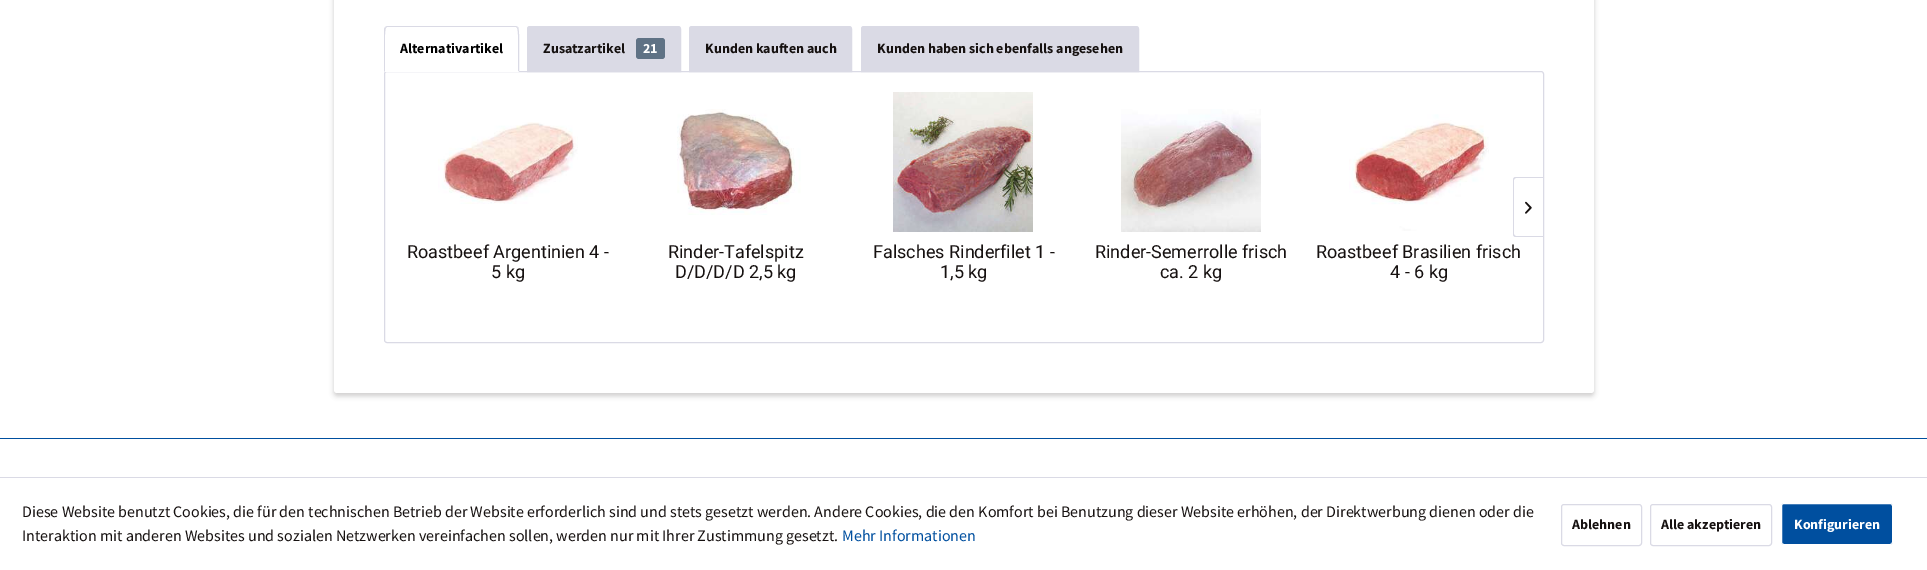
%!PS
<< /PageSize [1927 570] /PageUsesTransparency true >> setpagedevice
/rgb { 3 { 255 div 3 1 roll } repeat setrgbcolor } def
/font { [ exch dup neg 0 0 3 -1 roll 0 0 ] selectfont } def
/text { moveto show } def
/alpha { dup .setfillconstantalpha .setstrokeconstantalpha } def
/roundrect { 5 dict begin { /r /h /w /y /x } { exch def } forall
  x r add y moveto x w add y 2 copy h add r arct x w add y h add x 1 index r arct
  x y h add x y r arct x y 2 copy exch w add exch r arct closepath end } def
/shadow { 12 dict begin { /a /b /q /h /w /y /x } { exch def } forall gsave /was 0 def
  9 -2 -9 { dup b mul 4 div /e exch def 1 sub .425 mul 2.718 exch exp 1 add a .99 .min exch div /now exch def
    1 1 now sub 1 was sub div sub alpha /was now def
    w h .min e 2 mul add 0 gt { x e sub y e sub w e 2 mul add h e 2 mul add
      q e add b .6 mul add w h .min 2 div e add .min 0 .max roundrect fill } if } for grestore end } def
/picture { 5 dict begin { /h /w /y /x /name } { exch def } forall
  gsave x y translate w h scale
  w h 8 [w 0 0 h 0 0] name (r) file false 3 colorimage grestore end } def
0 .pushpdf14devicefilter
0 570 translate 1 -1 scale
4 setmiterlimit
255 255 255 rgb
0 0 1927 570 rectfill
22 17 16 rgb
334 -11 1260 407 3 2.5 0.2 shadow
255 255 255 rgb
334 -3 moveto 1260 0 rlineto 0 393 rlineto 0 1.5 -1.5 3 -3 3 rcurveto -1254 0 rlineto -1.5 0 -3 -1.5 -3 -3 rcurveto closepath fill
218 218 229 rgb
384.5 71.5 1159 271 2.5 roundrect stroke
255 255 255 rgb
387 26 moveto 129 0 rlineto 1.5 0 3 1.5 3 3 rcurveto 0 43 rlineto -135 0 rlineto 0 -43 rlineto 0 -1.5 1.5 -3 3 -3 rcurveto closepath fill
218 218 229 rgb
387 26 moveto -2 1 rlineto 1 1 rlineto 1 -1 rlineto 129 0 rlineto 1 1 rlineto 1 -1 rlineto -2 -1 rlineto closepath fill
519 72 moveto 0 -5 1 -43 -1 -45 rcurveto -1 1 rlineto 2 1 1 38 1 43 rcurveto closepath fill
255 255 255 rgb
519 72 moveto -1 -1 rlineto -133 0 rlineto -1 1 rlineto closepath fill
218 218 229 rgb
384 72 moveto 1 -1 rlineto 0 -5 -1 -42 1 -43 rcurveto -1 -1 rlineto -1 2 rlineto closepath fill
530 26.5 moveto 148 0 rlineto 1.5 0 2.5 1 2.5 2.5 rcurveto 0 42.5 rlineto -153 0 rlineto 0 -42.5 rlineto 0 -1.5 1 -2.5 2.5 -2.5 rcurveto closepath gsave fill grestore
stroke
95 114 133 rgb
636 38 29 21 3 roundrect fill
218 218 229 rgb
692 26.5 moveto 157 0 rlineto 1.5 0 2.5 1 2.5 2.5 rcurveto 0 42.5 rlineto -162 0 rlineto 0 -42.5 rlineto 0 -1.5 1 -2.5 2.5 -2.5 rcurveto closepath gsave fill grestore
stroke
864 26.5 moveto 272 0 rlineto 1.5 0 2.5 1 2.5 2.5 rcurveto 0 42.5 rlineto -277 0 rlineto 0 -42.5 rlineto 0 -1.5 1 -2.5 2.5 -2.5 rcurveto closepath gsave fill grestore
stroke
1516 177 moveto 27 0 rlineto 0 60 rlineto -27 0 rlineto -2 0 -3 -1 -3 -3 rcurveto 0 -54 rlineto 0 -2 1 -3 3 -3 rcurveto closepath 1516 178 moveto 27 0 rlineto 0 58 rlineto -27 0 rlineto -1 0 -2 -1 -2 -2 rcurveto 0 -54 rlineto 0 -1 1 -2 2 -2 rcurveto closepath eofill
(img_01.rgb) 1525 201 7 13 picture
(img_02.rgb) 438 122 140 82 picture
(img_03.rgb) 677 109 124 106 picture
(img_04.rgb) 893 92 140 140 picture
(img_05.rgb) 1121 109 140 123 picture
(img_06.rgb) 1349 114 140 117 picture
0 79 159 rgb
0 438 1927 1 rectfill
218 218 229 rgb
0 477 1927 1 rectfill
1561.5 504.5 80 41 2.5 roundrect stroke
1650.5 504.5 121 41 2.5 roundrect stroke
0 79 159 rgb
1781.5 503.5 111 41 2.5 roundrect gsave fill grestore
255 255 255 rgb
stroke
/SourceSansPro-Bold 14 font
0 0 0 rgb
(Alternativartikel) 400 53 text
22 17 16 rgb
(Zusatzartikel) 543 53 text
255 255 255 rgb
(21) 643 53 text
22 17 16 rgb
(Kunden kauften auch) 705 53 text
(Kunden haben sich ebenfalls angesehen) 877 53 text
/Roboto-Regular 18 font
(Roastbeef Argentinien 4 -) 407 258 text
(5 kg) 491 278 text
(Rinder-Tafelspitz) 668 258 text
(D/D/D/D 2,5 kg) 675 278 text
(Falsches Rinderfilet 1 -) 873 258 text
(1,5 kg) 940 278 text
(Rinder-Semerrolle frisch) 1095 258 text
(ca. 2 kg) 1160 278 text
(Roastbeef Brasilien frisch) 1316 258 text
(4 - 6 kg) 1390 278 text
/SourceSansPro-Regular 16 font
(Diese Website benutzt Cookies, die für den technischen Betrieb der Website erforderlich sind und stets gesetzt werden. Andere Cookies, die den Komfort bei Benutzung dieser Website erhöhen, der Direktwerbung dienen oder die) 22 517 text
(Interaktion mit anderen Websites und sozialen Netzwerken vereinfachen sollen, werden nur mit Ihrer Zustimmung gesetzt.) 22 541 text
0 79 159 rgb
(Mehr Informationen) 842 541 text
/SourceSansPro-Bold 14 font
22 17 16 rgb
(Ablehnen) 1572 529 text
(Alle akzeptieren) 1661 529 text
255 255 255 rgb
(Konfigurieren) 1794 529 text
.poppdf14devicefilter showpage
